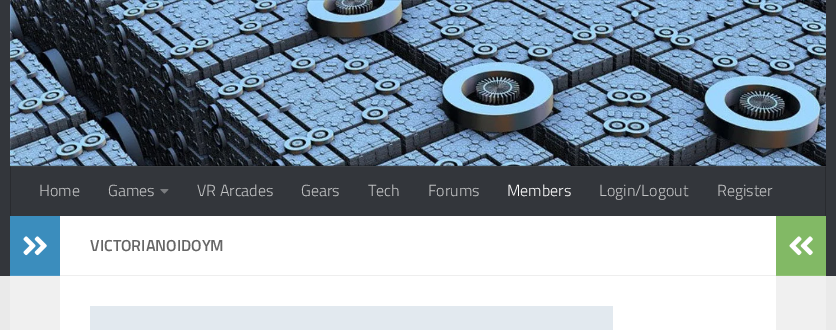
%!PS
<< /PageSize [836 330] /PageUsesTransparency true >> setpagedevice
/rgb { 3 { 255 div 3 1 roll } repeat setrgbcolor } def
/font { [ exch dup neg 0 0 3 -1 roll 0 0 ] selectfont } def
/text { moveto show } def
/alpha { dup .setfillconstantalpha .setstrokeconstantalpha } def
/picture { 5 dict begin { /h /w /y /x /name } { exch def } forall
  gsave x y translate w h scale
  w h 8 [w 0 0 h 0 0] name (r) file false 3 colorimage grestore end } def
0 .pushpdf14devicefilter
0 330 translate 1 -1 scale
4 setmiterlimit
234 234 234 rgb
0 0 836 330 rectfill
51 54 59 rgb
0 0 836 276 rectfill
61 64 69 rgb
10 166 816 1 rectfill
(img_01.rgb) 10 0 816 166 picture
0.2 alpha
0 0 0 rgb
10 165 816 1 rectfill
1 alpha
41 43 47 rgb
825 166 1 50 rectfill
52 54 57 rgb
825 166 1 1 rectfill
41 43 47 rgb
10 166 1 50 rectfill
52 54 57 rgb
10 166 1 1 rectfill
(img_02.rgb) 160 189 9 5 picture
255 255 255 rgb
60 216 716 114 rectfill
59 141 189 rgb
10 216 50 59 rectfill
79 152 196 rgb
10 275 50 1 rectfill
(img_03.rgb) 23 236 24 20 picture
238 238 238 rgb
60 275 716 1 rectfill
226 233 239 rgb
90 306 523 24 rectfill
130 185 101 rgb
776 216 50 59 rectfill
143 192 116 rgb
776 275 50 1 rectfill
(img_04.rgb) 789 236 24 20 picture
240 240 240 rgb
10 276 50 54 rectfill
776 276 50 54 rectfill
/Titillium-Light 16 font
194 195 196 rgb
(Home) 39 196 text
(Games) 108 196 text
(VR Arcades) 197 196 text
(Gears) 301 196 text
(Tech) 368 196 text
(Forums) 428 196 text
255 255 255 rgb
(Members) 507 196 text
194 195 196 rgb
(Login/Logout) 599 196 text
(Register) 717 196 text
/Titillium-SemiBold 16 font
102 102 102 rgb
(VICTORIANOIDOYM) 90 251 text
.poppdf14devicefilter showpage
